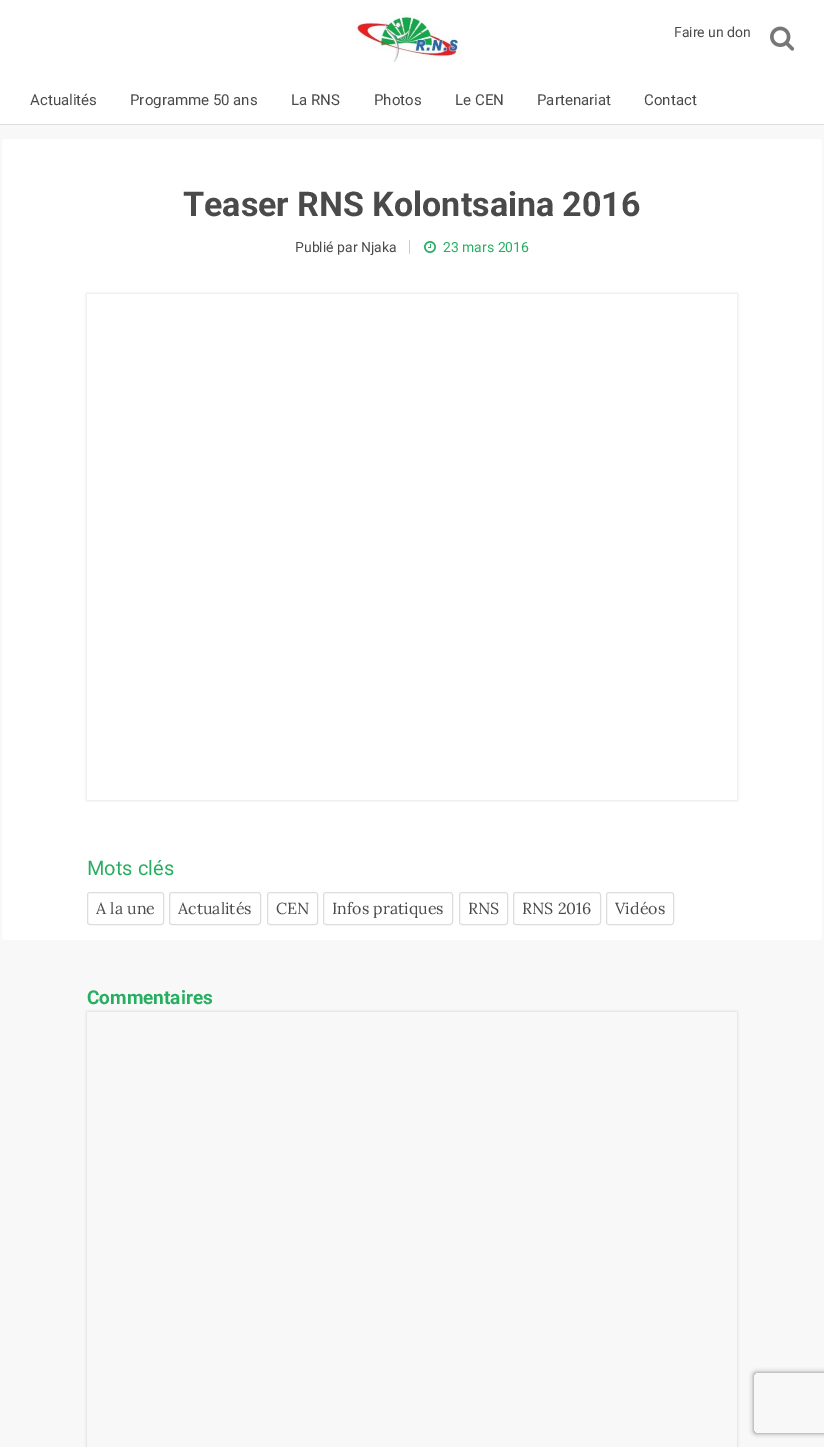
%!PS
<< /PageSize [824 1447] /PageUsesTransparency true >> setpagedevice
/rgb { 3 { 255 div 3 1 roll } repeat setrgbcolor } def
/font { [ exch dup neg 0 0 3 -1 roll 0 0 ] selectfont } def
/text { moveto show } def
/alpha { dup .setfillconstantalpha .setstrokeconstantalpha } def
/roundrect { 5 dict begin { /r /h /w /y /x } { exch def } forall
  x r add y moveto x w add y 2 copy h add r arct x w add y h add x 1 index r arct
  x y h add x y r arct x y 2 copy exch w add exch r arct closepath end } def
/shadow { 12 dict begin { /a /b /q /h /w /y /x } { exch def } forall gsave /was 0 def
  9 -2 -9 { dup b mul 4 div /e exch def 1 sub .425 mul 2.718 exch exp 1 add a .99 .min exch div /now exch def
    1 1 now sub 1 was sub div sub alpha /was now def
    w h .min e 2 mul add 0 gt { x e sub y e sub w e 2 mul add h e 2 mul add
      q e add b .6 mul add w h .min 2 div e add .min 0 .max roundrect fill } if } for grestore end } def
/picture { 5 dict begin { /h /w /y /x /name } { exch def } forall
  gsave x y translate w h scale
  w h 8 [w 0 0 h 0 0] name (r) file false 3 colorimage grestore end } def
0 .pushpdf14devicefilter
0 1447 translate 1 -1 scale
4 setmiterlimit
248 248 248 rgb
0 0 824 1447 rectfill
223 223 223 rgb
0 124 824 1 rectfill
255 255 255 rgb
0 0 824 124 rectfill
(img_01.rgb) 352 13 112 49 picture
(img_02.rgb) 770 26 25 25 picture
2 139 820 801 3 roundrect fill
204 204 204 rgb
409 240 1 14 rectfill
(img_03.rgb) 424 241 12 12 picture
gsave
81 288 moveto 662 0 rlineto 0 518 rlineto -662 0 rlineto closepath 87 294 moveto 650 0 rlineto 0 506 rlineto -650 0 rlineto closepath eoclip newpath
0 0 0 rgb
87 294 650 506 0 1.5 0.15 shadow
grestore
221 221 221 rgb
87.5 892.5 76 32 2.5 roundrect stroke
169.5 892.5 91 32 2.5 roundrect stroke
267.5 892.5 50 32 2.5 roundrect stroke
323.5 892.5 129 32 2.5 roundrect stroke
459.5 892.5 48 32 2.5 roundrect stroke
513.5 892.5 87 32 2.5 roundrect stroke
606.5 892.5 67 32 2.5 roundrect stroke
gsave
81 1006 moveto 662 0 rlineto 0 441 rlineto -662 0 rlineto closepath 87 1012 moveto 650 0 rlineto 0 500 rlineto -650 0 rlineto closepath eoclip newpath
0 0 0 rgb
87 1012 650 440 0 1.5 0.15 shadow
grestore
gsave
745 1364 moveto 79 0 rlineto 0 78 rlineto -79 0 rlineto closepath 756 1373 moveto 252 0 rlineto 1 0 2 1 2 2 rcurveto 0 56 rlineto 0 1 -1 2 -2 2 rcurveto -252 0 rlineto -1 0 -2 -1 -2 -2 rcurveto 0 -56 rlineto 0 -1 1 -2 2 -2 rcurveto closepath eoclip newpath
128 128 128 rgb
754 1373 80 60 2 2.5 1 shadow
grestore
/Roboto-Regular 14 font
74 74 74 rgb
(Faire un don) 674 37 text
/Roboto-Regular 15 font
(Actualités) 30 105 text
(Programme 50 ans) 130 105 text
(La RNS) 291 105 text
(Photos) 374 105 text
(Le CEN) 455 105 text
(Partenariat) 537 105 text
(Contact) 644 105 text
/Roboto-Bold 34 font
(Teaser RNS Kolontsaina 2016) 183 216 text
/Roboto-Regular 14 font
(Publié par Njaka) 295 252 text
39 174 96 rgb
(23 mars 2016) 443 252 text
/Roboto-Regular 20 font
(Mots clés) 87 875 text
/Lora-Regular 16 font
74 74 74 rgb
(A la une) 96 914 text
(Actualités) 178 914 text
(CEN) 276 914 text
(Infos pratiques) 332 914 text
(RNS) 468 914 text
(RNS 2016) 522 914 text
(Vidéos) 615 914 text
/Roboto-Bold 19 font
39 174 96 rgb
(Commentaires) 87 1004 text
.poppdf14devicefilter showpage
